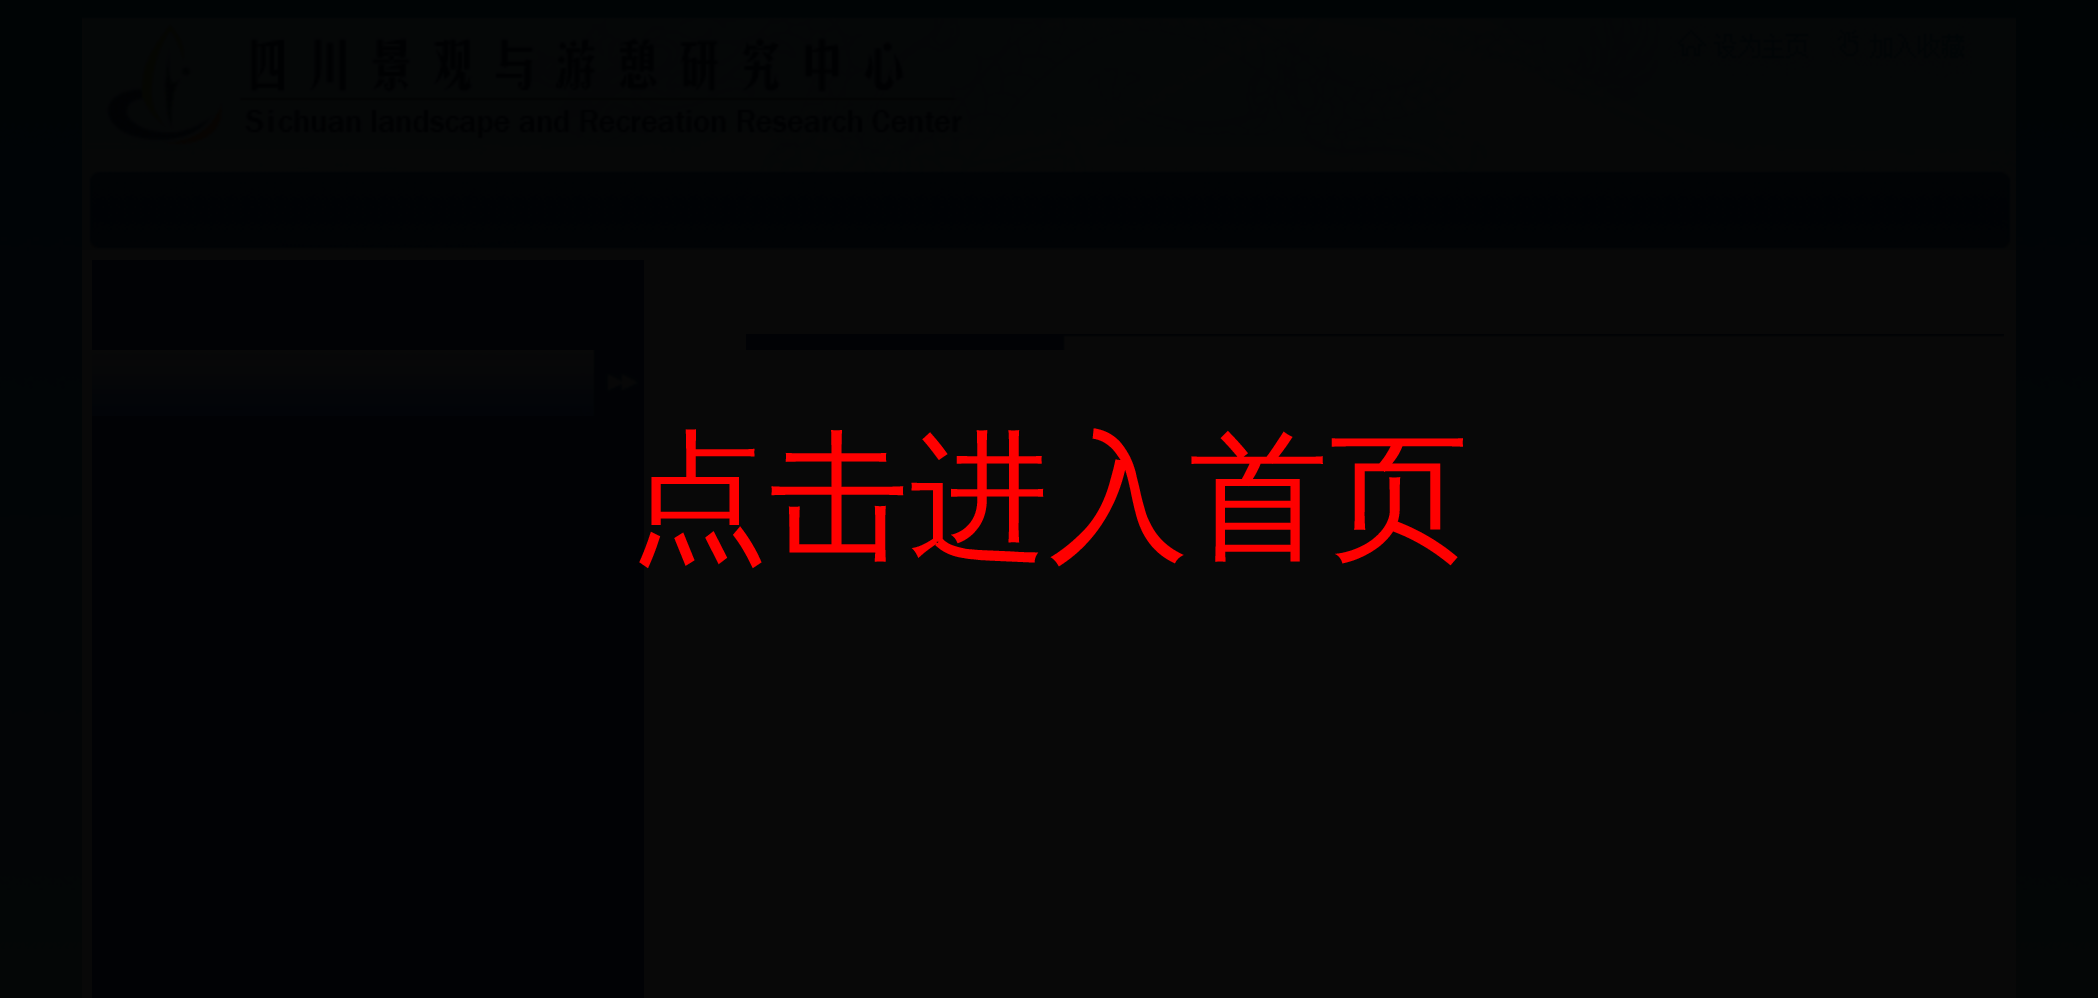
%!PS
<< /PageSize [2098 998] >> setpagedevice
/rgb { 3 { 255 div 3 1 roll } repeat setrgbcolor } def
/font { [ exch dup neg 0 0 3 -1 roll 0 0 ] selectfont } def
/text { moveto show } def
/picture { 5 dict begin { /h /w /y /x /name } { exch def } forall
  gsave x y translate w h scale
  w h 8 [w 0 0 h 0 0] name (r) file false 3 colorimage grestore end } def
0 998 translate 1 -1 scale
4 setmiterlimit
255 255 255 rgb
0 0 2098 998 rectfill
(img_01.rgb) 0 0 2098 998 picture
8 8 8 rgb
82 250 1934 748 rectfill
(img_02.rgb) 82 0 1934 250 picture
1 2 5 rgb
92 260 552 738 rectfill
(img_03.rgb) 92 350 547 66 picture
(img_04.rgb) 746 334 1258 16 picture
/WenQuanYiZenHei-Medium 140 font
255 0 0 rgb
(点击进入首页) 629 545 text
showpage
